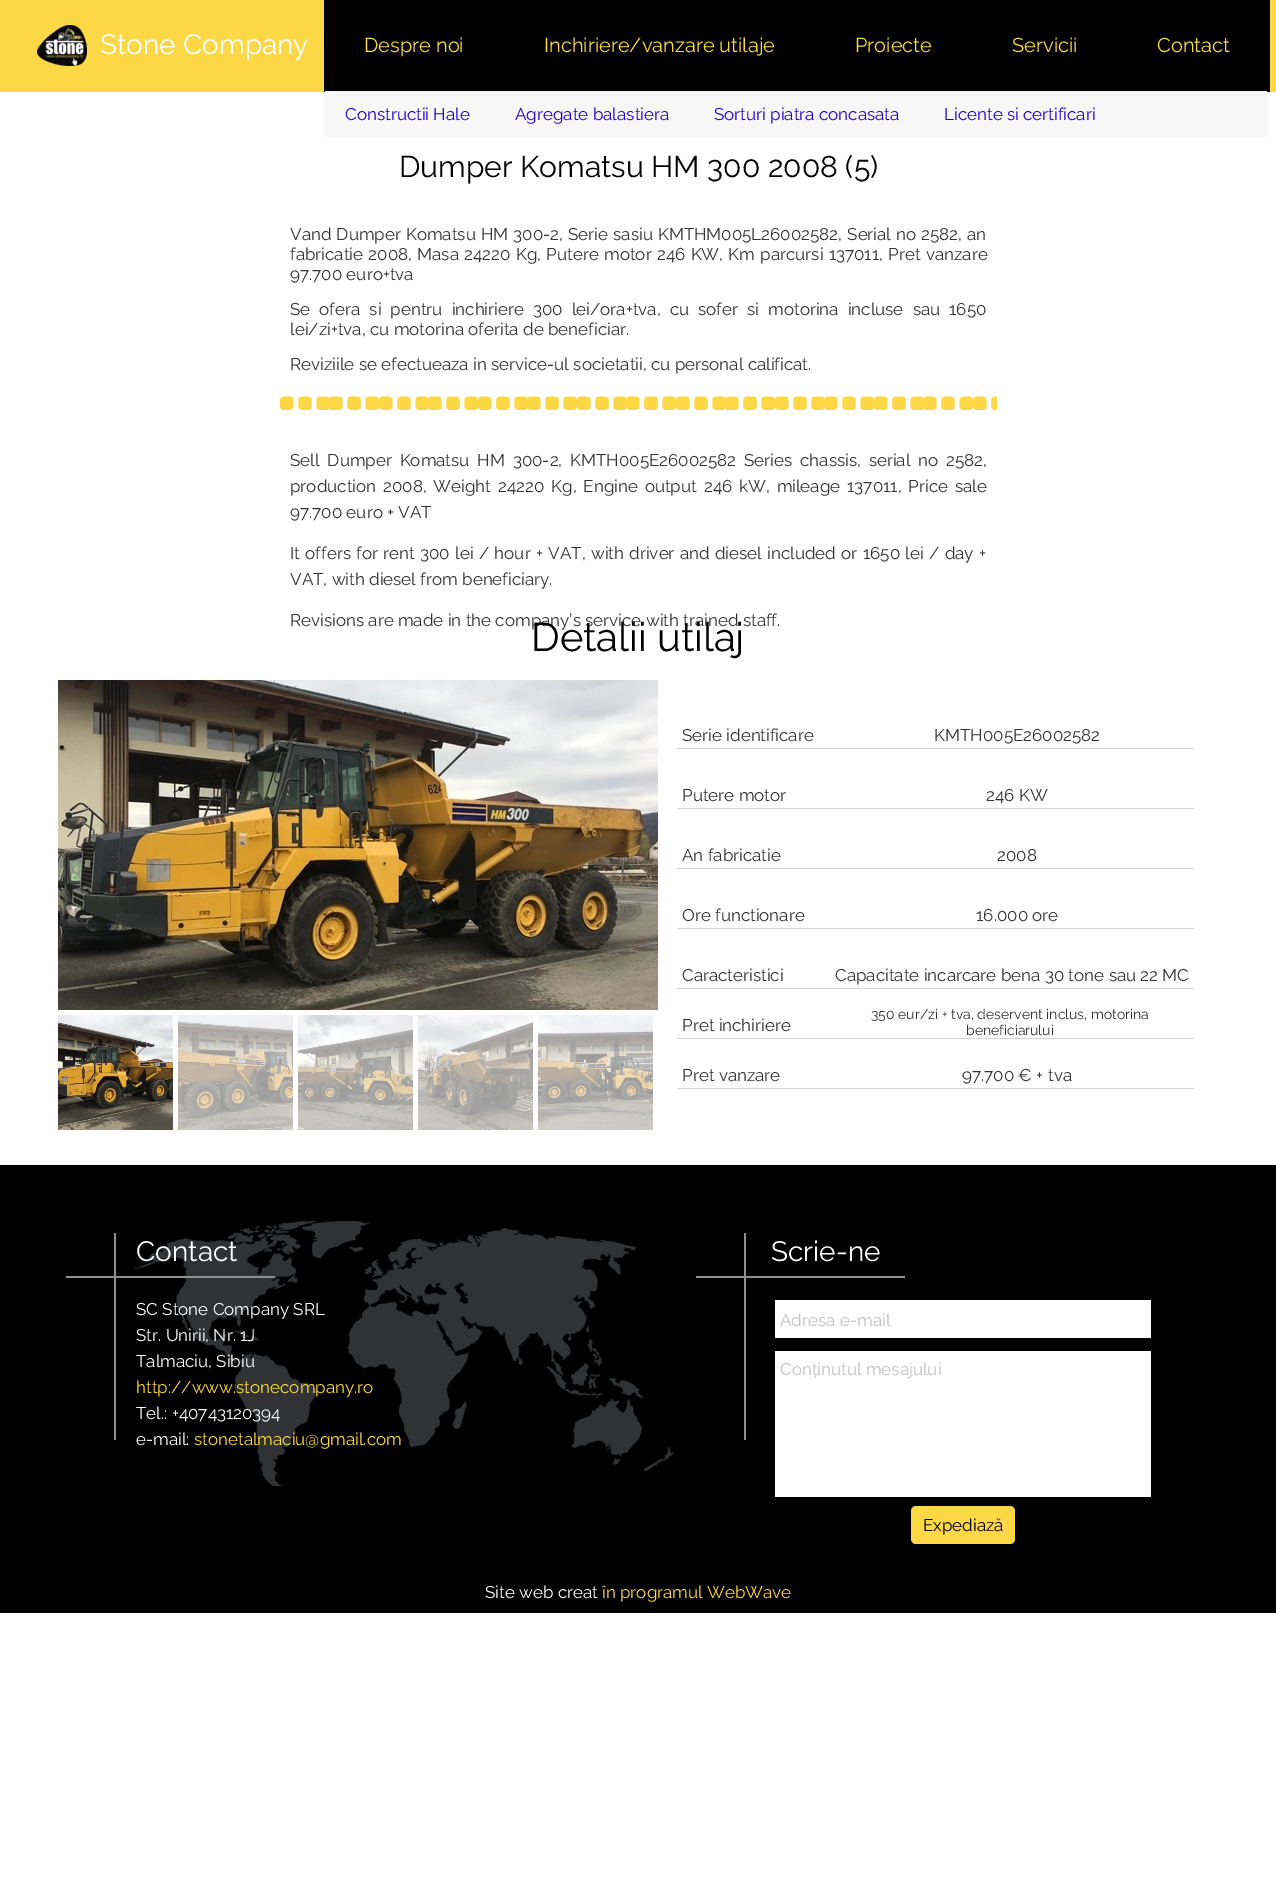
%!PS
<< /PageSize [1276 1885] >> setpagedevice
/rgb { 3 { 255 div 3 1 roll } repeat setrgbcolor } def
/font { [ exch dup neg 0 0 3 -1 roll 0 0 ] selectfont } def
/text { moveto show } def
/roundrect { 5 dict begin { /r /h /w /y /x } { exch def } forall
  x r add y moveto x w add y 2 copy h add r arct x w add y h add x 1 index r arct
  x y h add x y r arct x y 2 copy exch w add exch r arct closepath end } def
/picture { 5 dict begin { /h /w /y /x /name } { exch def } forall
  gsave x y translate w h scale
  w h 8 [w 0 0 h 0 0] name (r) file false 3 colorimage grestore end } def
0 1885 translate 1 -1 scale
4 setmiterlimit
255 255 255 rgb
0 0 1276 1885 rectfill
252 216 70 rgb
0 0 1276 92 rectfill
(img_01.rgb) 37 25 50 41 picture
0 0 0 rgb
324 0 946 92 rectfill
247 247 247 rgb
325 91 942 46 rectfill
(img_02.rgb) 280 396 717 14 picture
(img_03.rgb) 58 680 600 330 picture
(img_04.rgb) 58 1015 115 115 picture
(img_05.rgb) 178 1015 115 115 picture
(img_06.rgb) 298 1015 115 115 picture
(img_07.rgb) 418 1015 115 115 picture
(img_08.rgb) 538 1015 115 115 picture
212 212 212 rgb
677 748 517 1 rectfill
677 808 517 1 rectfill
677 868 517 1 rectfill
677 928 517 1 rectfill
677 988 517 1 rectfill
677 1038 517 1 rectfill
677 1088 517 1 rectfill
0 0 0 rgb
0 1165 1276 448 rectfill
(img_09.rgb) 134 1221 540 265 picture
143 143 143 rgb
66 1276 209 2 rectfill
114 1233 2 207 rectfill
696 1276 209 2 rectfill
744 1233 2 207 rectfill
255 255 255 rgb
775 1300 376 38 rectfill
775 1351 376 146 rectfill
252 216 70 rgb
911 1506 104 38 5 roundrect fill
/Raleway-Thin 28 font
255 255 255 rgb
(Stone Company) 100 54 text
/Raleway-Thin 20 font
252 216 70 rgb
(Despre noi) 364 52 text
(Inchiriere/vanzare utilaje) 544 52 text
(Proiecte) 855 52 text
(Servicii) 1012 52 text
(Contact) 1157 52 text
/Raleway-Thin 17 font
34 0 204 rgb
(Constructii Hale) 345 120 text
(Agregate balastiera) 515 120 text
(Sorturi piatra concasata) 714 120 text
(Licente si certificari) 944 120 text
/Raleway-Thin 30 font
0 0 0 rgb
(Dumper Komatsu HM 300 2008 \(5\)) 399 177 text
/Raleway-Thin 17 font
51 51 51 rgb
290 240 moveto 0.75 0 32 (Vand Dumper Komatsu HM 300-2, Serie sasiu KMTHM005L26002582, Serial no 2582, an) widthshow
290 260 moveto 1 0 32 (fabricatie 2008, Masa 24220 Kg, Putere motor 246 KW, Km parcursi 137011, Pret vanzare) widthshow
(97.700 euro+tva) 290 280 text
290 315 moveto 4.75 0 32 (Se ofera si pentru inchiriere 300 lei/ora+tva, cu sofer si motorina incluse sau 1650) widthshow
(lei/zi+tva, cu motorina oferita de beneficiar.) 290 335 text
(Reviziile se efectueaza in service-ul societatii, cu personal calificat.) 290 370 text
290 466 moveto 3.5 0 32 (Sell Dumper Komatsu HM 300-2, KMTH005E26002582 Series chassis, serial no 2582,) widthshow
290 492 moveto 2.6 0 32 (production 2008, Weight 24220 Kg, Engine output 246 kW, mileage 137011, Price sale) widthshow
(97.700 euro + VAT) 290 518 text
290 559 moveto 1 0 32 (It offers for rent 300 lei / hour + VAT, with driver and diesel included or 1650 lei / day +) widthshow
(VAT, with diesel from beneficiary.) 290 585 text
(Revisions are made in the company’s service with trained staff.) 290 626 text
/Raleway-Thin 40 font
0 0 0 rgb
(Detalii utilaj) 531 651 text
/Raleway-Thin 17 font
51 51 51 rgb
(Serie identificare) 682 741 text
(KMTH005E26002582) 934 741 text
(Putere motor) 682 801 text
(246 KW) 986 801 text
(An fabricatie) 682 861 text
(2008) 997 861 text
(Ore functionare) 682 921 text
(16.000 ore) 976 921 text
(Caracteristici) 682 981 text
(Capacitate incarcare bena 30 tone sau 22 MC) 835 981 text
(Pret inchiriere) 682 1031 text
/Raleway-Thin 14 font
(350 eur/zi + tva, deservent inclus, motorina) 871 1019 text
(beneficiarului) 966 1035 text
/Raleway-Thin 17 font
(Pret vanzare) 682 1081 text
(97.700 € + tva) 962 1081 text
/Raleway-Thin 28 font
255 255 255 rgb
(Scrie-ne) 771 1261 text
(Contact) 136 1261 text
/Raleway-Thin 17 font
(SC Stone Company SRL) 136 1315 text
(Str. Unirii, Nr. 1J) 136 1341 text
(Talmaciu, Sibiu) 136 1367 text
252 216 70 rgb
(http://www.stonecompany.ro) 136 1393 text
255 255 255 rgb
(Tel.: +40743120394) 136 1419 text
(e-mail:) 136 1445 text
252 216 70 rgb
(stonetalmaciu@gmail.com) 194 1445 text
194 194 194 rgb
(Adresa e-mail) 780 1326 text
(Conținutul mesajului) 780 1375 text
0 0 0 rgb
(Expediază) 923 1531 text
255 255 255 rgb
(Site web creat) 485 1598 text
252 216 70 rgb
(în programul WebWave) 602 1598 text
showpage
